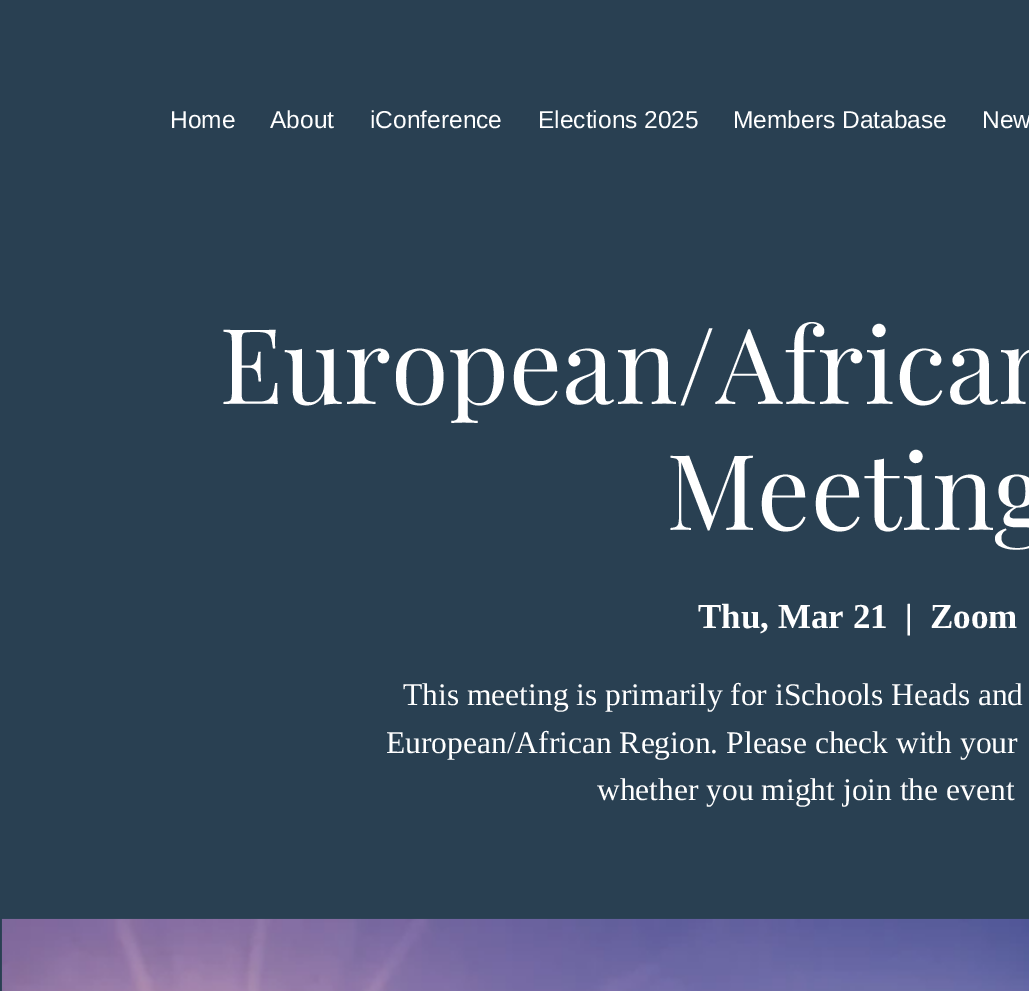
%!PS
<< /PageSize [1029 991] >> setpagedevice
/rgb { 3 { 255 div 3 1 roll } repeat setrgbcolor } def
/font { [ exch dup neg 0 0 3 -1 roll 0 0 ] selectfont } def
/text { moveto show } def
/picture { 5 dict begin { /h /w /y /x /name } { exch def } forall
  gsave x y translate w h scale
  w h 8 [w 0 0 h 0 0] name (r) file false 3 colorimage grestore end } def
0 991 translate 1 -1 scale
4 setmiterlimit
41 64 82 rgb
0 0 1029 991 rectfill
(img_01.rgb) 1 918 1028 73 picture
/LiberationSans-Regular 24.5 font
255 255 255 rgb
(Home) 170 128 text
(About) 270 128 text
(iConference) 370 128 text
(Elections 2025) 538 128 text
(Members Database) 733 128 text
(New) 982 128 text
/PlayfairDisplay-Regular 105 font
(European/African) 219 404 text
(Meeting) 666 530 text
/LiberationSerif-Bold 35 font
(Thu, Mar 21) 698 628 text
(|) 905 628 text
(Zoom) 930 628 text
/LiberationSerif-Regular 31.5 font
(This meeting is primarily for iSchools Heads and) 403 705 text
(European/African Region. Please check with your) 386 753 text
(whether you might join the event) 597 800 text
showpage
